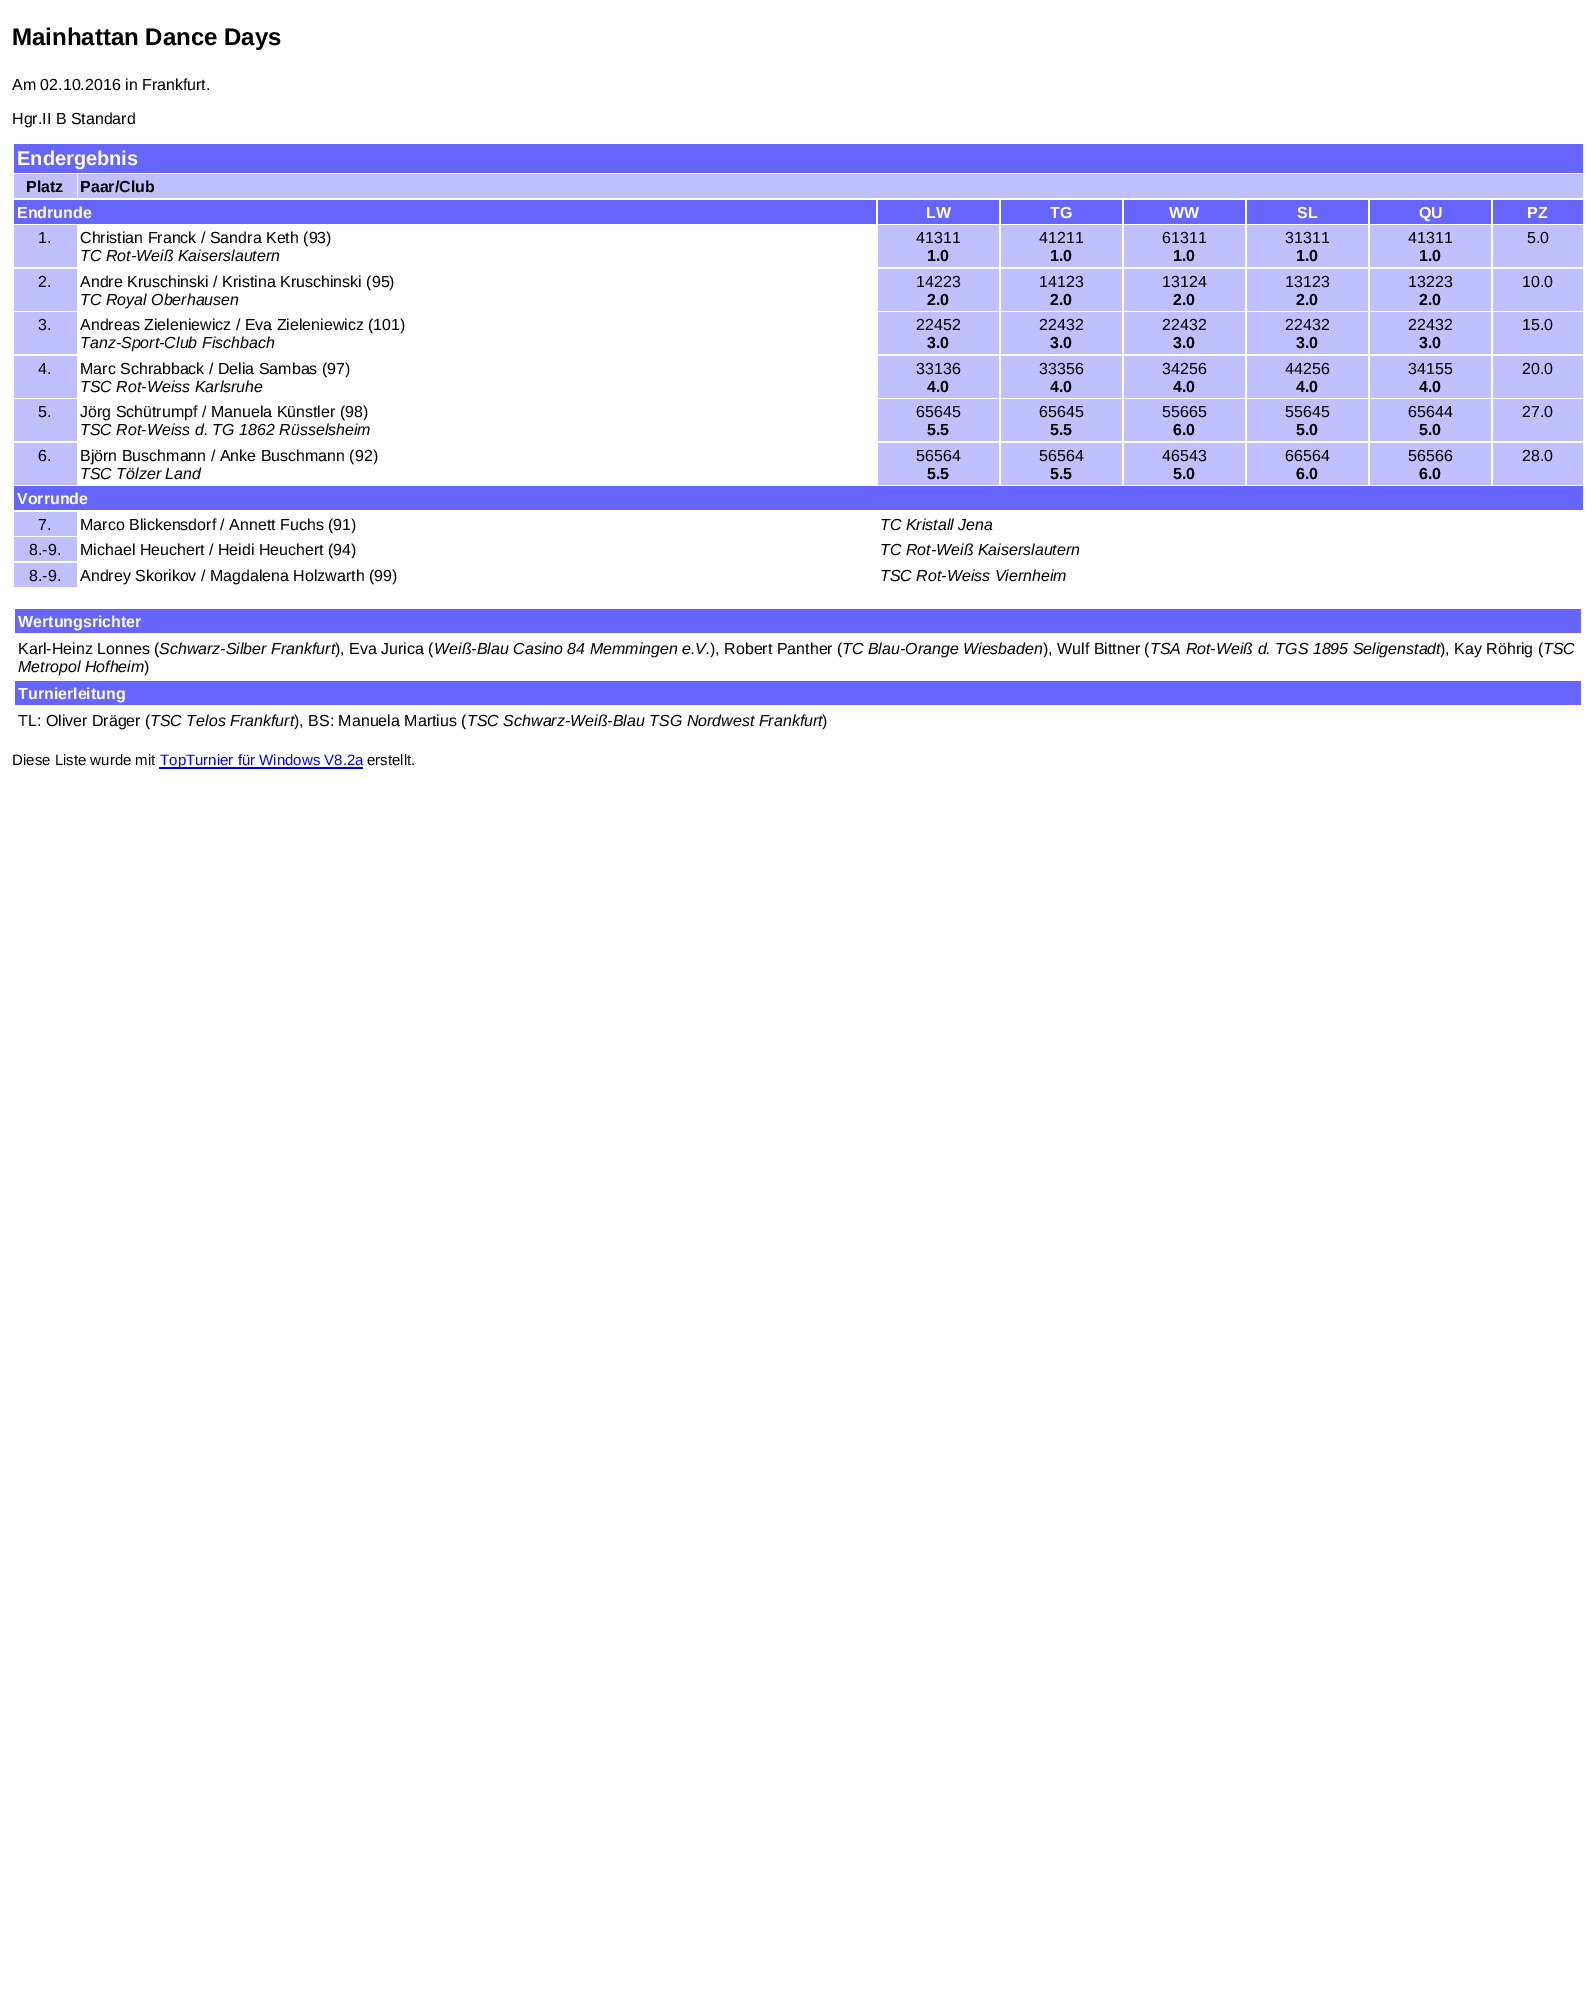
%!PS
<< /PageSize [1596 2013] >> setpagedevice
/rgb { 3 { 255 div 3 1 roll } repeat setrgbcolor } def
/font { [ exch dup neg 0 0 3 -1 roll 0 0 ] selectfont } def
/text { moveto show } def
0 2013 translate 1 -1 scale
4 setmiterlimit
255 255 255 rgb
0 0 1596 2013 rectfill
102 102 255 rgb
14 144 1569 29 rectfill
192 192 255 rgb
14 174 63 24 rectfill
78 174 1505 24 rectfill
102 102 255 rgb
14 200 862 24 rectfill
878 200 121 24 rectfill
1001 200 121 24 rectfill
1124 200 121 24 rectfill
1247 200 121 24 rectfill
1370 200 121 24 rectfill
1493 200 90 24 rectfill
192 192 255 rgb
14 225 63 42 rectfill
878 225 121 42 rectfill
1001 225 121 42 rectfill
1124 225 121 42 rectfill
1247 225 121 42 rectfill
1370 225 121 42 rectfill
1493 225 90 42 rectfill
14 269 63 42 rectfill
878 269 121 42 rectfill
1001 269 121 42 rectfill
1124 269 121 42 rectfill
1247 269 121 42 rectfill
1370 269 121 42 rectfill
1493 269 90 42 rectfill
14 312 63 42 rectfill
878 312 121 42 rectfill
1001 312 121 42 rectfill
1124 312 121 42 rectfill
1247 312 121 42 rectfill
1370 312 121 42 rectfill
1493 312 90 42 rectfill
14 356 63 42 rectfill
878 356 121 42 rectfill
1001 356 121 42 rectfill
1124 356 121 42 rectfill
1247 356 121 42 rectfill
1370 356 121 42 rectfill
1493 356 90 42 rectfill
14 399 63 42 rectfill
878 399 121 42 rectfill
1001 399 121 42 rectfill
1124 399 121 42 rectfill
1247 399 121 42 rectfill
1370 399 121 42 rectfill
1493 399 90 42 rectfill
14 443 63 42 rectfill
878 443 121 42 rectfill
1001 443 121 42 rectfill
1124 443 121 42 rectfill
1247 443 121 42 rectfill
1370 443 121 42 rectfill
1493 443 90 42 rectfill
102 102 255 rgb
14 486 1569 24 rectfill
192 192 255 rgb
14 512 63 24 rectfill
14 537 63 24 rectfill
14 563 63 24 rectfill
102 102 255 rgb
15 609 1566 24 rectfill
15 681 1566 24 rectfill
0 0 255 rgb
159 767 204 2 rectfill
/LiberationSans-Bold 24 font
0 0 0 rgb
(Mainhattan Dance Days) 12 45 text
/LiberationSans-Regular 16 font
(Am 02.10.2016 in Frankfurt.) 12 90 text
(Hgr.II B Standard) 12 124 text
/LiberationSans-Bold 20 font
255 255 255 rgb
(Endergebnis) 17 165 text
/LiberationSans-Bold 16 font
0 0 0 rgb
(Platz) 26 192 text
(Paar/Club) 80 192 text
255 255 255 rgb
(Endrunde) 17 218 text
(LW) 926 218 text
(TG) 1050 218 text
(WW) 1169 218 text
(SL) 1297 218 text
(QU) 1419 218 text
(PZ) 1527 218 text
/LiberationSans-Regular 16 font
0 0 0 rgb
(1.) 38 243 text
(Christian Franck / Sandra Keth \(93\)) 80 243 text
/LiberationSans-Italic 16 font
(TC Rot-Weiß Kaiserslautern) 80 261 text
/LiberationSans-Regular 16 font
(41311) 916 243 text
/LiberationSans-Bold 16 font
(1.0) 927 261 text
/LiberationSans-Regular 16 font
(41211) 1039 243 text
/LiberationSans-Bold 16 font
(1.0) 1050 261 text
/LiberationSans-Regular 16 font
(61311) 1162 243 text
/LiberationSans-Bold 16 font
(1.0) 1173 261 text
/LiberationSans-Regular 16 font
(31311) 1285 243 text
/LiberationSans-Bold 16 font
(1.0) 1296 261 text
/LiberationSans-Regular 16 font
(41311) 1408 243 text
/LiberationSans-Bold 16 font
(1.0) 1419 261 text
/LiberationSans-Regular 16 font
(5.0) 1527 243 text
(2.) 38 287 text
(Andre Kruschinski / Kristina Kruschinski \(95\)) 80 287 text
/LiberationSans-Italic 16 font
(TC Royal Oberhausen) 80 305 text
/LiberationSans-Regular 16 font
(14223) 916 287 text
/LiberationSans-Bold 16 font
(2.0) 927 305 text
/LiberationSans-Regular 16 font
(14123) 1039 287 text
/LiberationSans-Bold 16 font
(2.0) 1050 305 text
/LiberationSans-Regular 16 font
(13124) 1162 287 text
/LiberationSans-Bold 16 font
(2.0) 1173 305 text
/LiberationSans-Regular 16 font
(13123) 1285 287 text
/LiberationSans-Bold 16 font
(2.0) 1296 305 text
/LiberationSans-Regular 16 font
(13223) 1408 287 text
/LiberationSans-Bold 16 font
(2.0) 1419 305 text
/LiberationSans-Regular 16 font
(10.0) 1522 287 text
(3.) 38 330 text
(Andreas Zieleniewicz / Eva Zieleniewicz \(101\)) 80 330 text
/LiberationSans-Italic 16 font
(Tanz-Sport-Club Fischbach) 80 348 text
/LiberationSans-Regular 16 font
(22452) 916 330 text
/LiberationSans-Bold 16 font
(3.0) 927 348 text
/LiberationSans-Regular 16 font
(22432) 1039 330 text
/LiberationSans-Bold 16 font
(3.0) 1050 348 text
/LiberationSans-Regular 16 font
(22432) 1162 330 text
/LiberationSans-Bold 16 font
(3.0) 1173 348 text
/LiberationSans-Regular 16 font
(22432) 1285 330 text
/LiberationSans-Bold 16 font
(3.0) 1296 348 text
/LiberationSans-Regular 16 font
(22432) 1408 330 text
/LiberationSans-Bold 16 font
(3.0) 1419 348 text
/LiberationSans-Regular 16 font
(15.0) 1522 330 text
(4.) 38 374 text
(Marc Schrabback / Delia Sambas \(97\)) 80 374 text
/LiberationSans-Italic 16 font
(TSC Rot-Weiss Karlsruhe) 80 392 text
/LiberationSans-Regular 16 font
(33136) 916 374 text
/LiberationSans-Bold 16 font
(4.0) 927 392 text
/LiberationSans-Regular 16 font
(33356) 1039 374 text
/LiberationSans-Bold 16 font
(4.0) 1050 392 text
/LiberationSans-Regular 16 font
(34256) 1162 374 text
/LiberationSans-Bold 16 font
(4.0) 1173 392 text
/LiberationSans-Regular 16 font
(44256) 1285 374 text
/LiberationSans-Bold 16 font
(4.0) 1296 392 text
/LiberationSans-Regular 16 font
(34155) 1408 374 text
/LiberationSans-Bold 16 font
(4.0) 1419 392 text
/LiberationSans-Regular 16 font
(20.0) 1522 374 text
(5.) 38 417 text
(Jörg Schütrumpf / Manuela Künstler \(98\)) 80 417 text
/LiberationSans-Italic 16 font
(TSC Rot-Weiss d. TG 1862 Rüsselsheim) 80 435 text
/LiberationSans-Regular 16 font
(65645) 916 417 text
/LiberationSans-Bold 16 font
(5.5) 927 435 text
/LiberationSans-Regular 16 font
(65645) 1039 417 text
/LiberationSans-Bold 16 font
(5.5) 1050 435 text
/LiberationSans-Regular 16 font
(55665) 1162 417 text
/LiberationSans-Bold 16 font
(6.0) 1173 435 text
/LiberationSans-Regular 16 font
(55645) 1285 417 text
/LiberationSans-Bold 16 font
(5.0) 1296 435 text
/LiberationSans-Regular 16 font
(65644) 1408 417 text
/LiberationSans-Bold 16 font
(5.0) 1419 435 text
/LiberationSans-Regular 16 font
(27.0) 1522 417 text
(6.) 38 461 text
(Björn Buschmann / Anke Buschmann \(92\)) 80 461 text
/LiberationSans-Italic 16 font
(TSC Tölzer Land) 80 479 text
/LiberationSans-Regular 16 font
(56564) 916 461 text
/LiberationSans-Bold 16 font
(5.5) 927 479 text
/LiberationSans-Regular 16 font
(56564) 1039 461 text
/LiberationSans-Bold 16 font
(5.5) 1050 479 text
/LiberationSans-Regular 16 font
(46543) 1162 461 text
/LiberationSans-Bold 16 font
(5.0) 1173 479 text
/LiberationSans-Regular 16 font
(66564) 1285 461 text
/LiberationSans-Bold 16 font
(6.0) 1296 479 text
/LiberationSans-Regular 16 font
(56566) 1408 461 text
/LiberationSans-Bold 16 font
(6.0) 1419 479 text
/LiberationSans-Regular 16 font
(28.0) 1522 461 text
/LiberationSans-Bold 16 font
255 255 255 rgb
(Vorrunde) 17 504 text
/LiberationSans-Regular 16 font
0 0 0 rgb
(7.) 38 530 text
(Marco Blickensdorf / Annett Fuchs \(91\)) 80 530 text
/LiberationSans-Italic 16 font
(TC Kristall Jena) 880 530 text
/LiberationSans-Regular 16 font
(8.-9.) 29 555 text
(Michael Heuchert / Heidi Heuchert \(94\)) 80 555 text
/LiberationSans-Italic 16 font
(TC Rot-Weiß Kaiserslautern) 880 555 text
/LiberationSans-Regular 16 font
(8.-9.) 29 581 text
(Andrey Skorikov / Magdalena Holzwarth \(99\)) 80 581 text
/LiberationSans-Italic 16 font
(TSC Rot-Weiss Viernheim) 880 581 text
/LiberationSans-Bold 16 font
255 255 255 rgb
(Wertungsrichter) 18 627 text
/LiberationSans-Regular 16 font
0 0 0 rgb
(Karl-Heinz Lonnes \() 18 654 text
/LiberationSans-Italic 16 font
(Schwarz-Silber Frankfurt) 159 654 text
/LiberationSans-Regular 16 font
(\), Eva Jurica \() 335 654 text
/LiberationSans-Italic 16 font
(Weiß-Blau Casino 84 Memmingen e.V.) 434 654 text
/LiberationSans-Regular 16 font
(\), Robert Panther \() 710 654 text
/LiberationSans-Italic 16 font
(TC Blau-Orange Wiesbaden) 842 654 text
/LiberationSans-Regular 16 font
(\), Wulf Bittner \() 1043 654 text
/LiberationSans-Italic 16 font
(TSA Rot-Weiß d. TGS 1895 Seligenstadt) 1150 654 text
/LiberationSans-Regular 16 font
(\), Kay Röhrig \() 1440 654 text
/LiberationSans-Italic 16 font
(TSC) 1543 654 text
(Metropol Hofheim) 18 672 text
/LiberationSans-Regular 16 font
(\)) 144 672 text
/LiberationSans-Bold 16 font
255 255 255 rgb
(Turnierleitung) 18 699 text
/LiberationSans-Regular 16 font
0 0 0 rgb
(TL: Oliver Dräger \() 18 726 text
/LiberationSans-Italic 16 font
(TSC Telos Frankfurt) 150 726 text
/LiberationSans-Regular 16 font
(\), BS: Manuela Martius \() 294 726 text
/LiberationSans-Italic 16 font
(TSC Schwarz-Weiß-Blau TSG Nordwest Frankfurt) 467 726 text
/LiberationSans-Regular 16 font
(\)) 822 726 text
/LiberationSans-Regular 15 font
(Diese Liste wurde mit) 12 765 text
0 0 255 rgb
(TopTurnier für Windows V8.2a) 160 765 text
0 0 0 rgb
(erstellt.) 367 765 text
showpage
